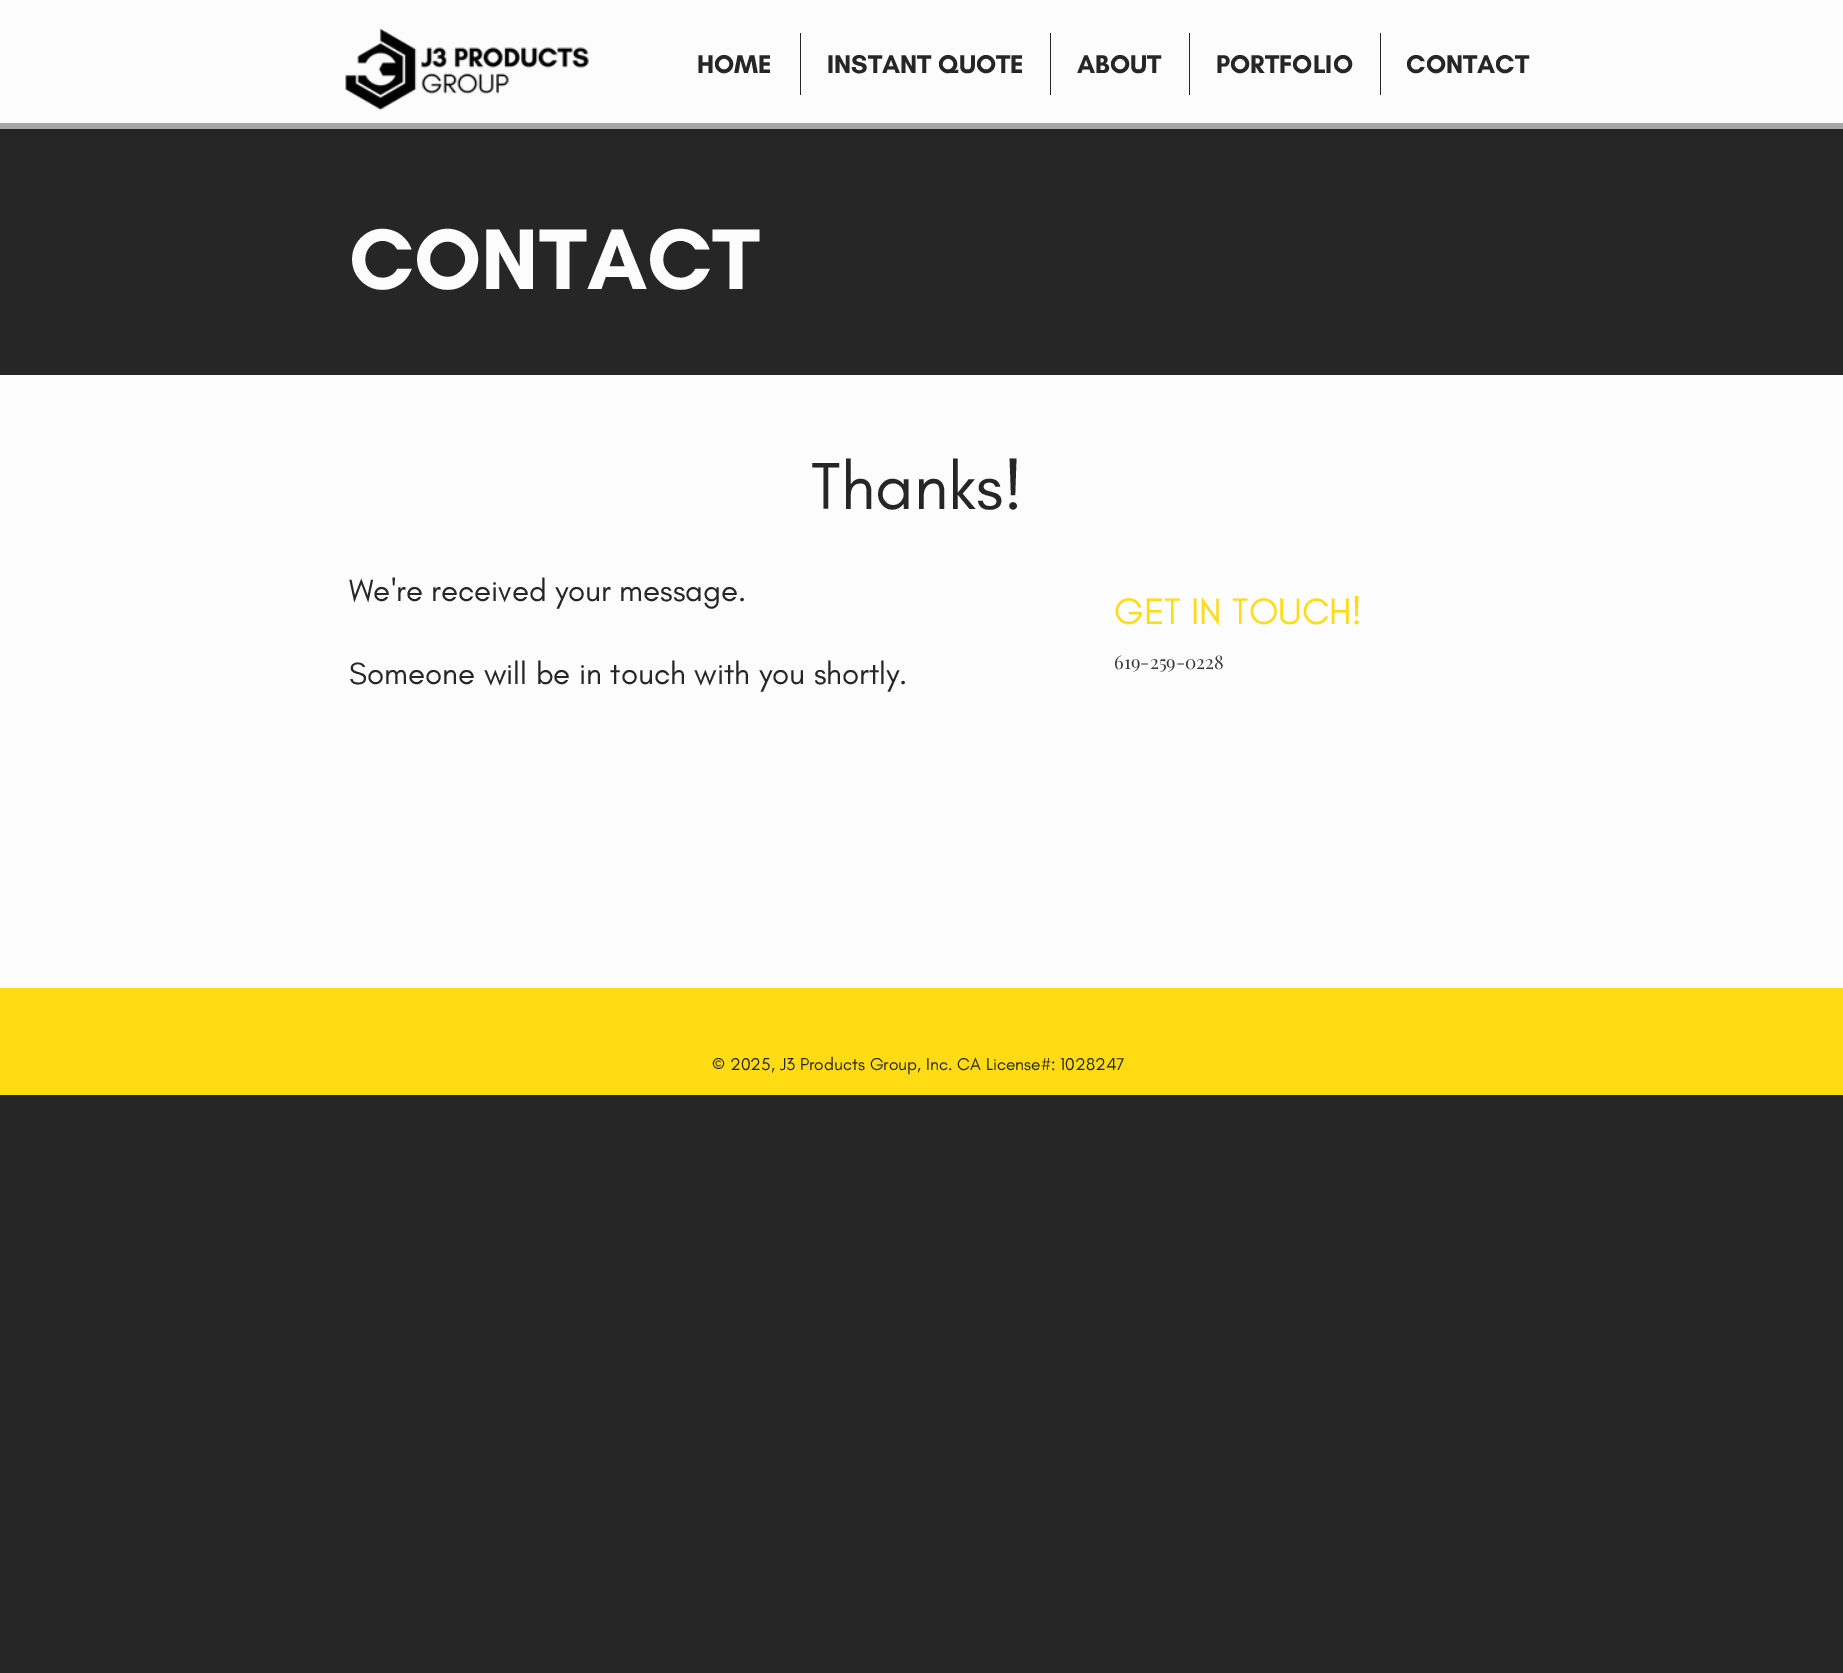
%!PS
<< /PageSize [1843 1673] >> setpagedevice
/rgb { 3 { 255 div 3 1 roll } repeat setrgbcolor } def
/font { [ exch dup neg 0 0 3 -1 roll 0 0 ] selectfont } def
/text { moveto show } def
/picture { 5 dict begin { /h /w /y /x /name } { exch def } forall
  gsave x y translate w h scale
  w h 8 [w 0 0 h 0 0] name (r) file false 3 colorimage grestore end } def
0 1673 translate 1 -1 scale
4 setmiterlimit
38 38 38 rgb
0 0 1843 1673 rectfill
252 252 252 rgb
0 0 1843 123 rectfill
166 166 166 rgb
0 123 1843 6 rectfill
(img_01.rgb) 345 28 244 83 picture
38 38 38 rgb
800 33 1 62 rectfill
1050 33 1 62 rectfill
1189 33 1 62 rectfill
1380 33 1 62 rectfill
252 252 252 rgb
0 375 1843 613 rectfill
255 219 20 rgb
0 988 1843 107 rectfill
/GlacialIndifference-Bold 26.25 font
38 38 38 rgb
(HOME) 697 73 text
(INSTANT QUOTE) 827 73 text
(ABOUT) 1077 73 text
(PORTFOLIO) 1216 73 text
(CONTACT) 1406 73 text
/GlacialIndifference-Bold 87.5 font
252 252 252 rgb
(CONTACT) 349 289 text
/GlacialIndifference-Regular 67.5 font
38 38 38 rgb
(Thanks!) 811 509 text
/GlacialIndifference-Regular 31.25 font
(We're received your message.) 349 601 text
(Someone will be in touch with you shortly.) 349 684 text
/GlacialIndifference-Regular 37.5 font
255 219 20 rgb
(GET IN TOUCH!) 1114 624 text
/PlayfairDisplay-Regular 18.75 font
59 59 59 rgb
(619-259-0228) 1114 669 text
/GlacialIndifference-Regular 17.5 font
38 38 38 rgb
(© 2025, J3 Products Group, Inc. CA License#: 1028247) 712 1070 text
showpage
